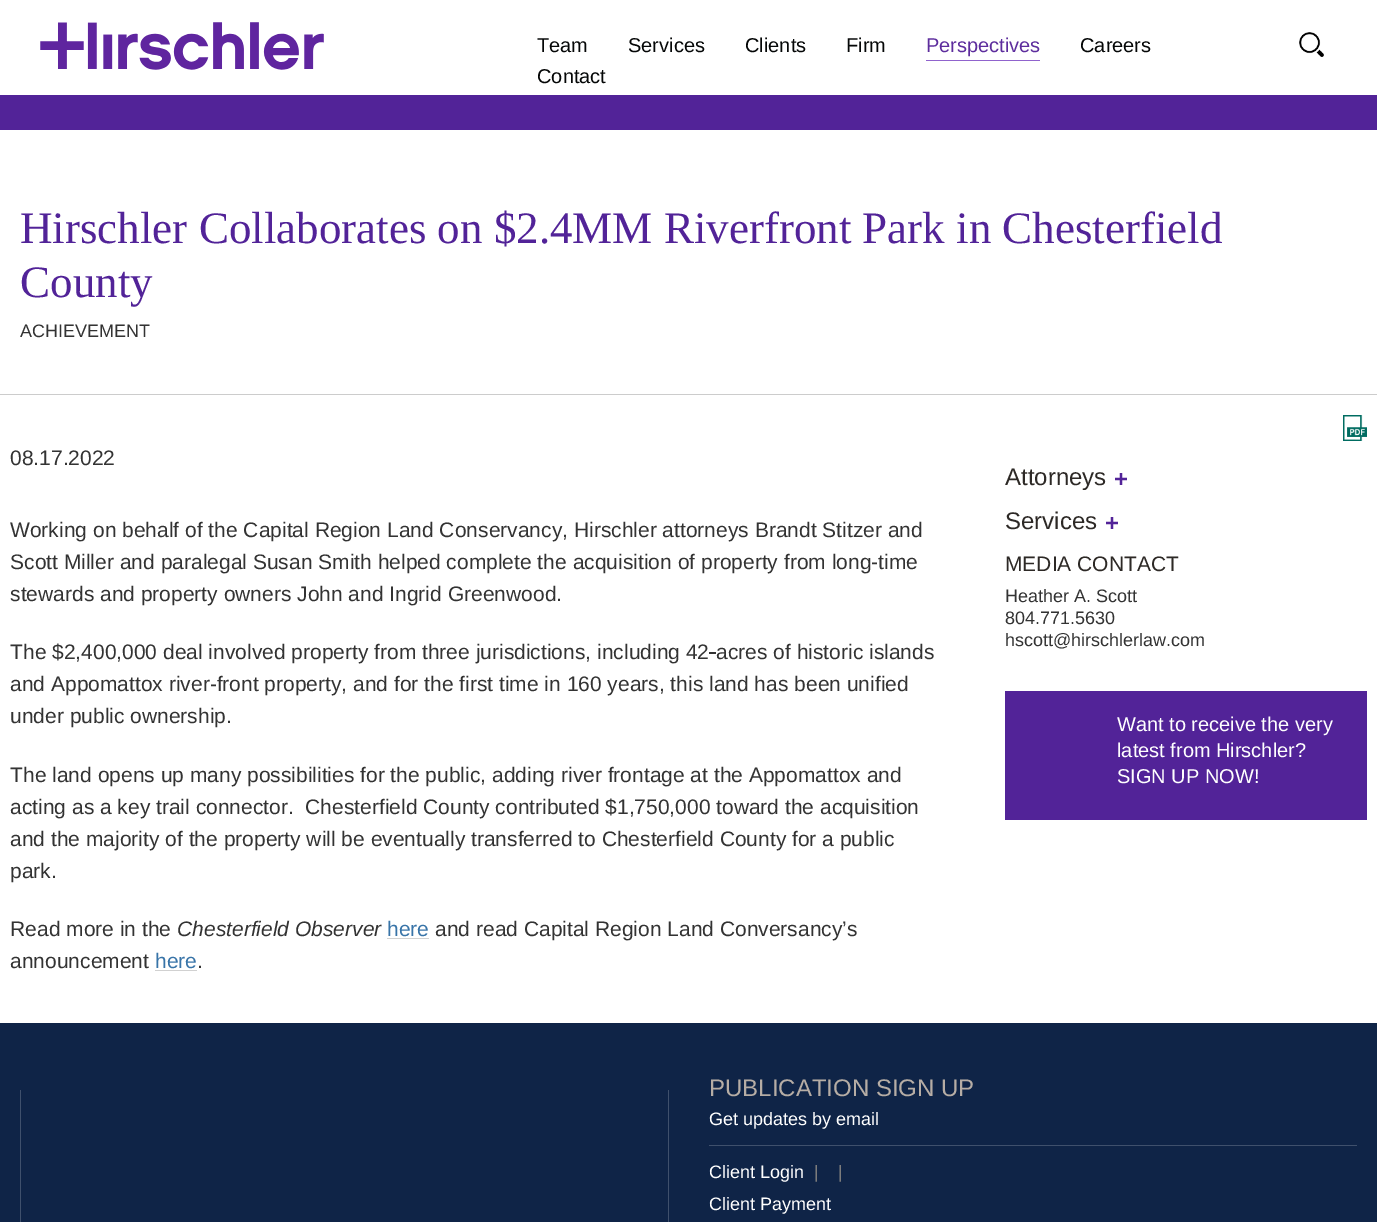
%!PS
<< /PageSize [1377 1222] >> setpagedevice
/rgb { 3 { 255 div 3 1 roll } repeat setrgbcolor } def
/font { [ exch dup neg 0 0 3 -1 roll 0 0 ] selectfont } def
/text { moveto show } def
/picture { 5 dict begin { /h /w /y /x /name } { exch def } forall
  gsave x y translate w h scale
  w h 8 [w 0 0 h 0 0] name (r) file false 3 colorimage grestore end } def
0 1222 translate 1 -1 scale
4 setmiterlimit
255 255 255 rgb
0 0 1377 1222 rectfill
(img_01.rgb) 40 22 284 48 picture
(img_02.rgb) 1299 32 25 25 picture
82 35 152 rgb
0 95 1377 35 rectfill
144 99 205 rgb
926 60 114 1 rectfill
204 204 204 rgb
0 394 1377 1 rectfill
(img_03.rgb) 1343 415 24 26 picture
51 51 51 rgb
709 652 7 2 rectfill
209 209 209 rgb
387 938 42 1 rectfill
155 970 42 1 rectfill
82 35 152 rgb
1005 691 362 129 rectfill
15 36 71 rgb
0 1023 1377 199 rectfill
63 80 108 rgb
20 1090 1 132 rectfill
668 1090 1 132 rectfill
709 1145 648 1 rectfill
/LiberationSans-Regular 20 font
5 7 7 rgb
(Team) 537 52 text
(Services) 628 52 text
(Clients) 745 52 text
(Firm) 846 52 text
93 45 157 rgb
(Perspectives) 926 52 text
5 7 7 rgb
(Careers) 1080 52 text
(Contact) 537 83 text
/LiberationSerif-Regular 45 font
82 35 152 rgb
(Hirschler Collaborates on $2.4MM Riverfront Park in Chesterfield) 20 243 text
(County) 20 297 text
/LiberationSans-Regular 18 font
51 51 51 rgb
(ACHIEVEMENT) 20 337 text
/LiberationSans-Regular 21 font
(08.17.2022) 10 465 text
(Working on behalf of the Capital Region Land Conservancy, Hirschler attorneys Brandt Stitzer and) 10 537 text
(Scott Miller and paralegal Susan Smith helped complete the acquisition of property from long-time) 10 569 text
(stewards and property owners John and Ingrid Greenwood.) 10 601 text
(The $2,400,000 deal involved property from three jurisdictions, including 42) 10 659 text
(acres of historic islands) 716 659 text
(and Appomattox river-front property, and for the first time in 160 years, this land has been unified) 10 691 text
(under public ownership.) 10 723 text
(The land opens up many possibilities for the public, adding river frontage at the Appomattox and) 10 782 text
(acting as a key trail connector.  Chesterfield County contributed $1,750,000 toward the acquisition) 10 814 text
(and the majority of the property will be eventually transferred to Chesterfield County for a public) 10 846 text
(park.) 10 878 text
(Read more in the) 10 936 text
/LiberationSans-Italic 21 font
(Chesterfield Observer) 177 936 text
/LiberationSans-Regular 21 font
56 116 168 rgb
(here) 387 936 text
51 51 51 rgb
(and read Capital Region Land Conversancy’s) 435 936 text
(announcement) 10 968 text
56 116 168 rgb
(here) 155 968 text
51 51 51 rgb
(.) 197 968 text
/LiberationSans-Regular 24 font
45 41 38 rgb
(Attorneys) 1005 485 text
/LiberationSans-Bold 24 font
82 35 152 rgb
(+) 1114 487 text
/LiberationSans-Regular 24 font
45 41 38 rgb
(Services) 1005 529 text
/LiberationSans-Bold 24 font
82 35 152 rgb
(+) 1105 531 text
/LiberationSans-Regular 21 font
45 41 38 rgb
(MEDIA CONTACT) 1005 571 text
/LiberationSans-Regular 18 font
51 51 51 rgb
(Heather A. Scott) 1005 602 text
(804.771.5630) 1005 624 text
(hscott@hirschlerlaw.com) 1005 646 text
/LiberationSans-Regular 20 font
255 255 255 rgb
(Want to receive the very) 1117 731 text
(latest from Hirschler?) 1117 757 text
(SIGN UP NOW!) 1117 783 text
/LiberationSans-Regular 24 font
182 173 165 rgb
(PUBLICATION SIGN UP) 709 1096 text
/LiberationSans-Regular 18 font
255 255 255 rgb
(Get updates by email) 709 1125 text
(Client Login) 709 1178 text
124 124 124 rgb
(|) 814 1178 text
(|) 838 1178 text
255 255 255 rgb
(Client Payment) 709 1210 text
showpage
